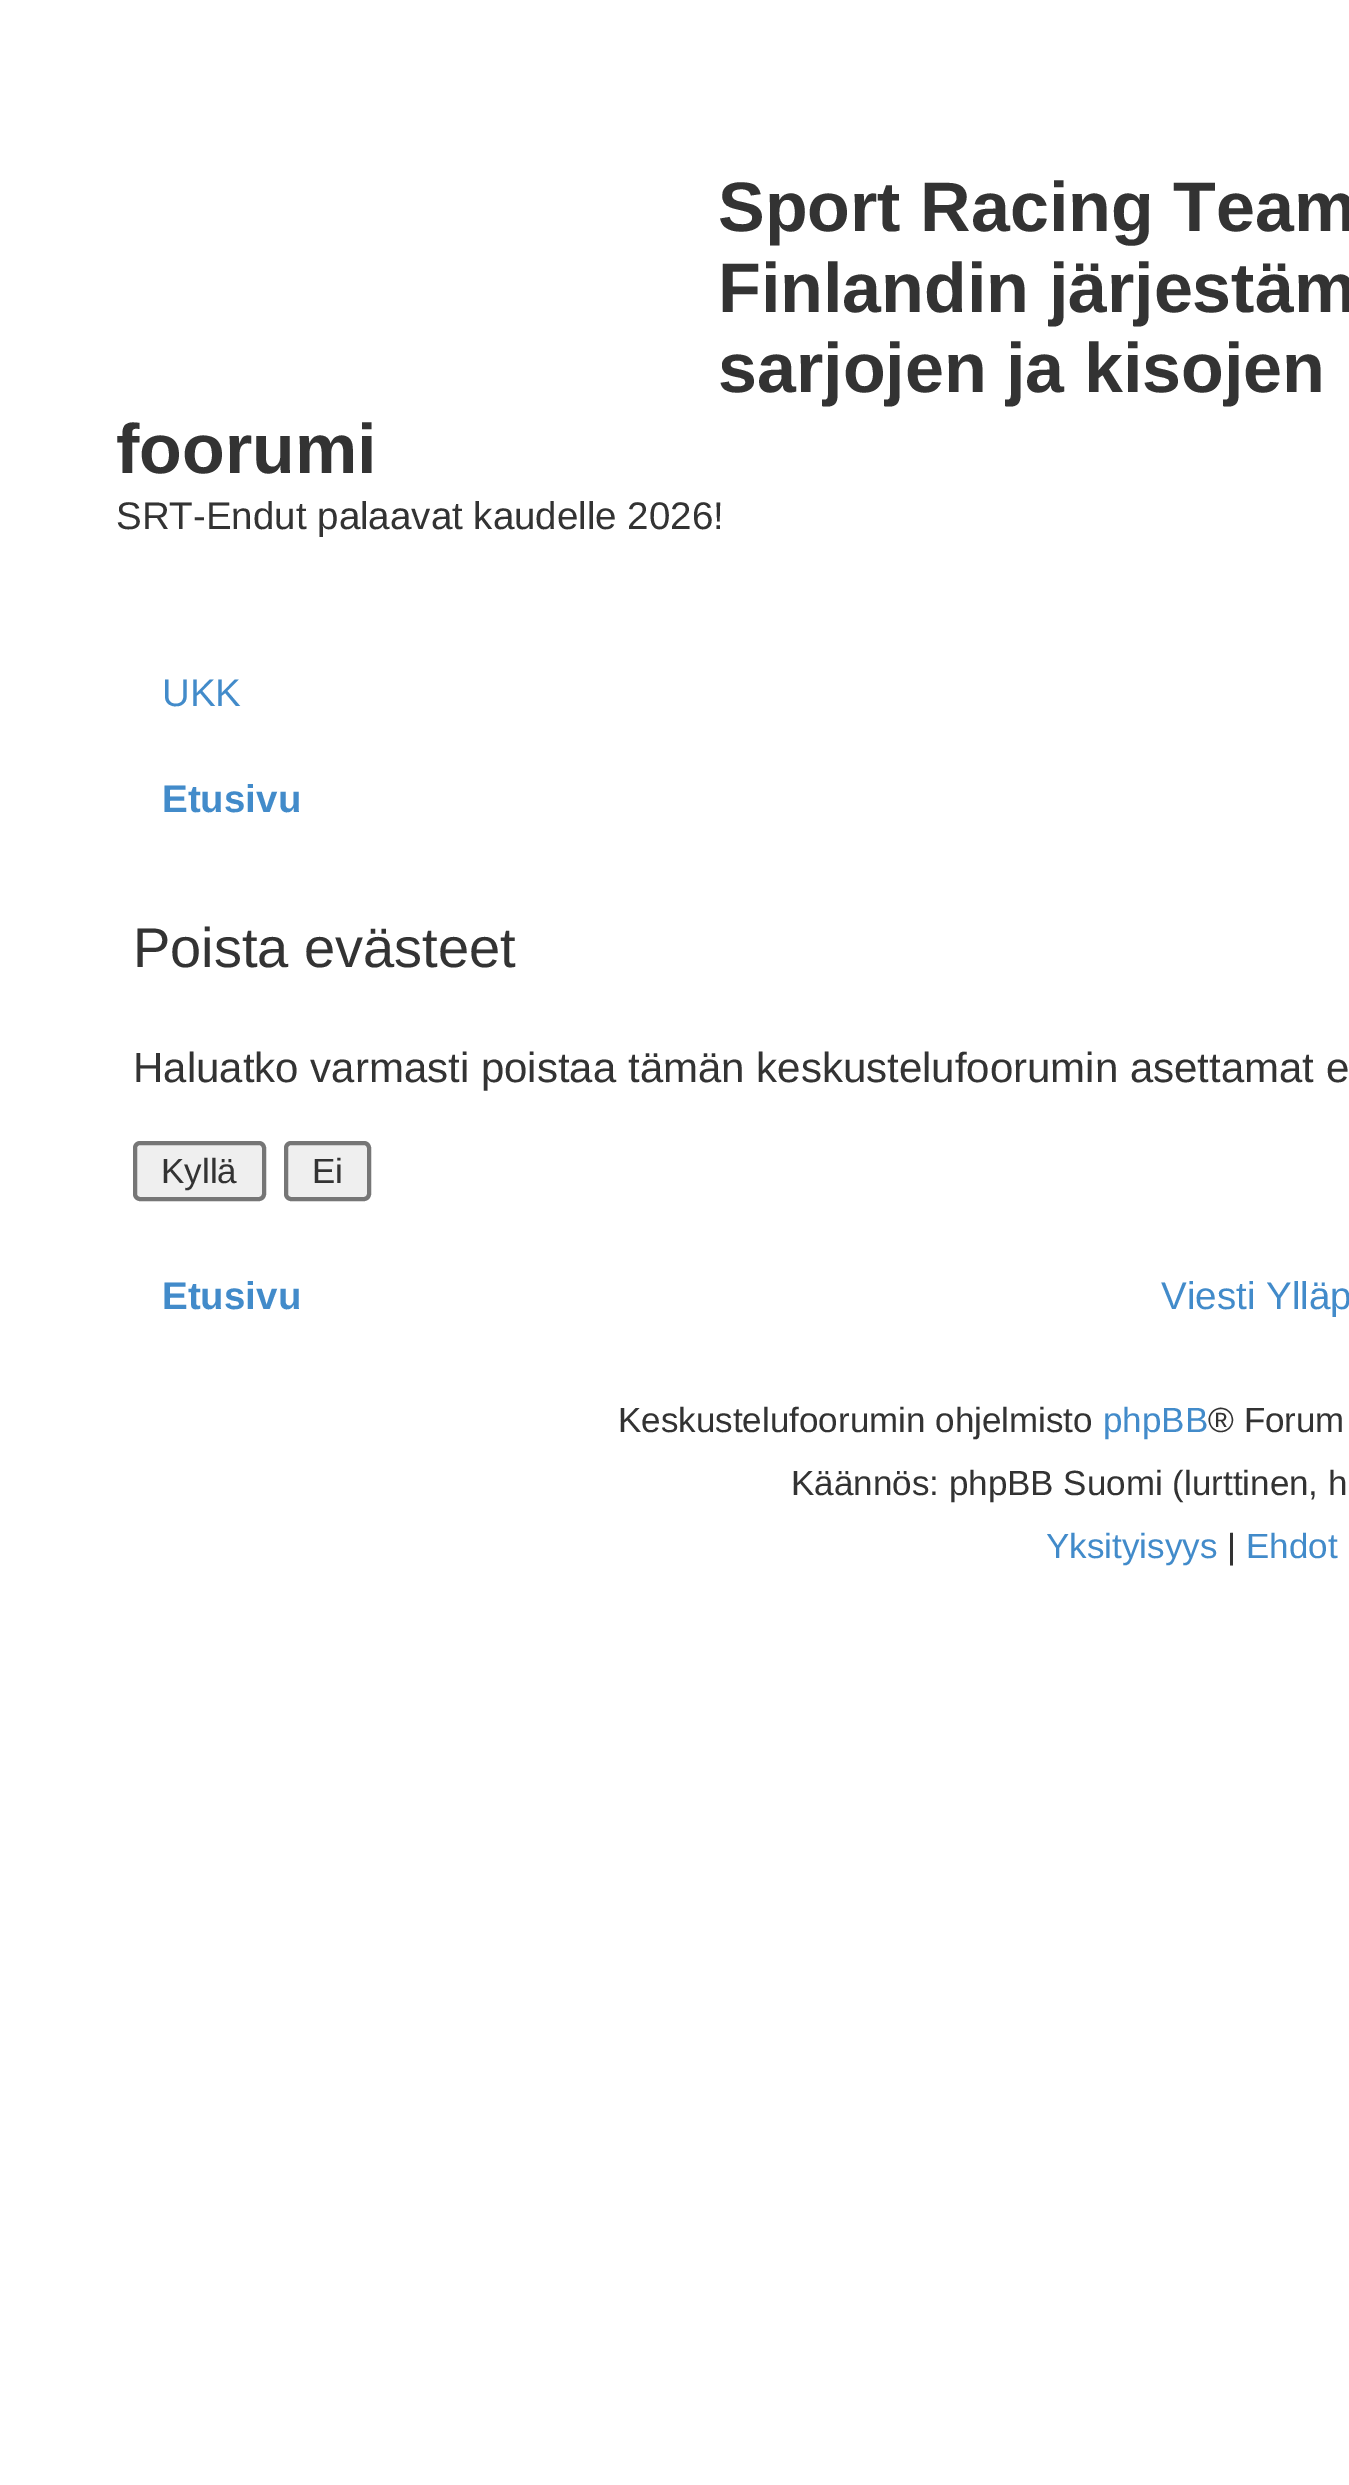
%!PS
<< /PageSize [1349 2485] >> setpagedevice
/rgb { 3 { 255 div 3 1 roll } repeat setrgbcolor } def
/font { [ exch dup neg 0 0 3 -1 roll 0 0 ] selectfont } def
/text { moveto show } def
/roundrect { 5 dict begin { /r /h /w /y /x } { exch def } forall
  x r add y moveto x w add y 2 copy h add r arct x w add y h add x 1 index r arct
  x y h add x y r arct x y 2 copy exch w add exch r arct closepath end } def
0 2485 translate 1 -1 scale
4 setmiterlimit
255 255 255 rgb
0 0 1349 2485 rectfill
239 239 239 rgb
135 1143 129 56 5 roundrect gsave fill grestore
118 118 118 rgb
4 setlinewidth
stroke
239 239 239 rgb
286 1143 83 56 5 roundrect gsave fill grestore
118 118 118 rgb
stroke
/LiberationSans-Bold 70 font
51 51 51 rgb
(Sport Racing Team) 718 231 text
(Finlandin järjestäm) 718 312 text
(sarjojen ja kisojen) 718 392 text
(foorumi) 116 473 text
/LiberationSans-Regular 38.5 font
(SRT-Endut palaavat kaudelle 2026!) 116 529 text
66 139 202 rgb
(UKK) 162 706 text
/LiberationSans-Bold 38.5 font
(Etusivu) 162 812 text
/LiberationSans-Regular 56 font
51 51 51 rgb
(Poista evästeet) 133 967 text
/LiberationSans-Regular 42 font
(Haluatko varmasti poistaa tämän keskustelufoorumin asettamat e) 133 1082 text
/LiberationSans-Regular 35 font
(Kyllä) 161 1183 text
(Ei) 312 1183 text
/LiberationSans-Bold 38.5 font
66 139 202 rgb
(Etusivu) 162 1309 text
/LiberationSans-Regular 38.5 font
(Viesti Ylläp) 1161 1309 text
/LiberationSans-Regular 35 font
51 51 51 rgb
(Keskustelufoorumin ohjelmisto) 618 1432 text
66 139 202 rgb
(phpBB) 1103 1432 text
51 51 51 rgb
(® Forum) 1208 1432 text
(Käännös: phpBB Suomi \(lurttinen, h) 791 1495 text
66 139 202 rgb
(Yksityisyys) 1046 1558 text
51 51 51 rgb
(|) 1227 1558 text
66 139 202 rgb
(Ehdot) 1246 1558 text
showpage
